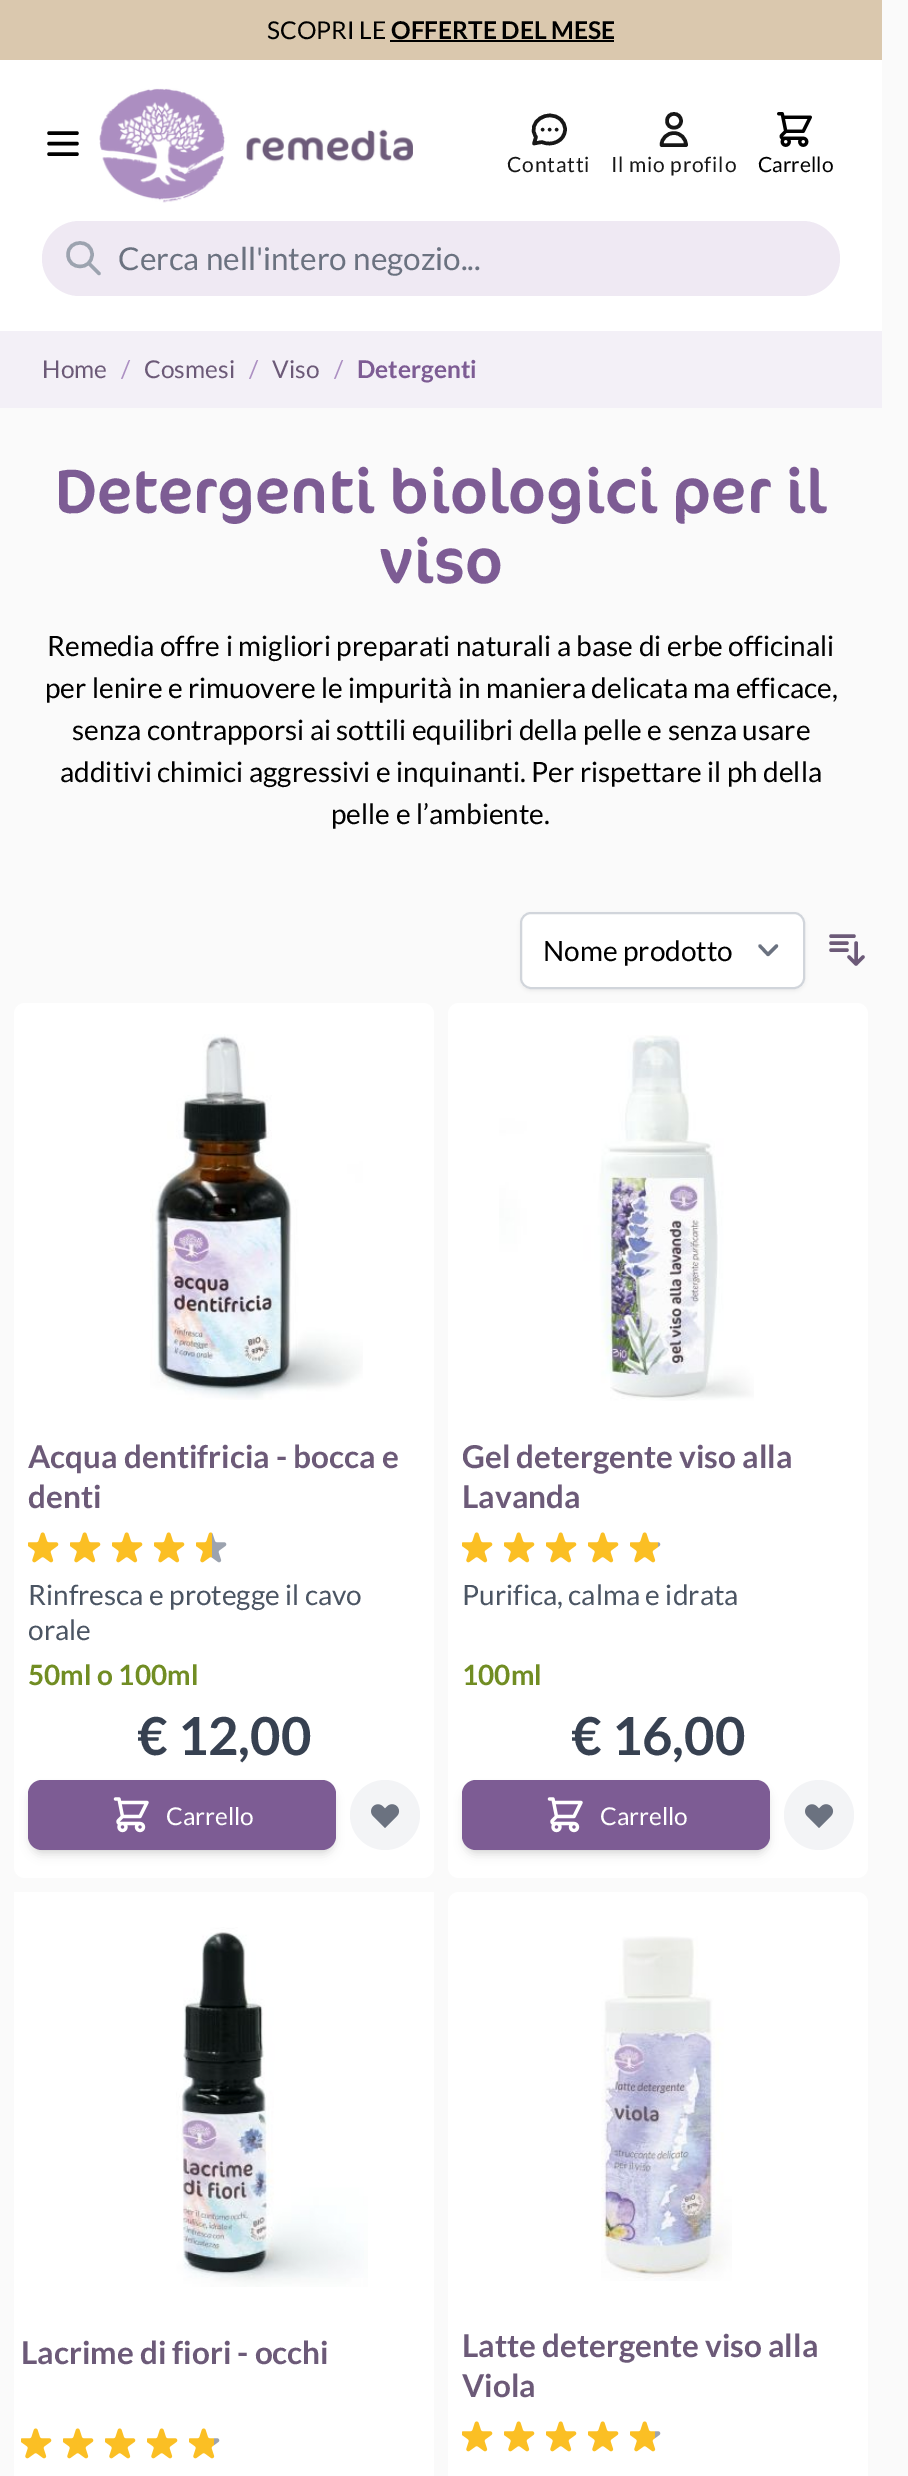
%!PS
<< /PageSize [908 2476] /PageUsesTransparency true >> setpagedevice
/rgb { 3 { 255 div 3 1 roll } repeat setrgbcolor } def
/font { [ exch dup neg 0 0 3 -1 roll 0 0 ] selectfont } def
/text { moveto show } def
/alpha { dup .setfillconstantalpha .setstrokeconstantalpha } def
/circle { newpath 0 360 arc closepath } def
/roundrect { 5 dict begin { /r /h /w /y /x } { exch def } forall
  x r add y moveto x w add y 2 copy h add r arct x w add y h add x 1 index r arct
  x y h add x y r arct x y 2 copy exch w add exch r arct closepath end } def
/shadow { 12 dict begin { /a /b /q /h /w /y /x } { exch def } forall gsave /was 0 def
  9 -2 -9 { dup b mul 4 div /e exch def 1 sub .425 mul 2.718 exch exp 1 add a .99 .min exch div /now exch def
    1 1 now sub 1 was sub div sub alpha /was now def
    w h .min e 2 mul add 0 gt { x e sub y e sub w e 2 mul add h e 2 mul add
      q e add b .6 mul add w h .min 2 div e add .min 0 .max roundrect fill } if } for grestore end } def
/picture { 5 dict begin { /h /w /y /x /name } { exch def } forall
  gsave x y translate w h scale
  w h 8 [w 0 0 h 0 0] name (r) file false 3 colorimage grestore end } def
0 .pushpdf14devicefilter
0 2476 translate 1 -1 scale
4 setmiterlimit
250 250 250 rgb
0 0 908 2476 rectfill
218 200 174 rgb
0 0 882 60 rectfill
0 0 0 rgb
390 40 224 2 rectfill
255 255 255 rgb
0 60 882 271 rectfill
0 0 0 rgb
3.5 setlinewidth
1 setlinecap
1 setlinejoin
49 133 moveto 28 0 rlineto 49 143.5 moveto 28 0 rlineto 49 154 moveto 28 0 rlineto stroke
(img_01.rgb) 99 88 314 115 picture
23 23 23 rgb
542.5 129.5 moveto 0 0 rlineto 549.5 129.5 moveto 0 0 rlineto 556.5 129.5 moveto 0 0 rlineto 565 129.5 moveto 0 11.5 -13.5 17 -23 12.5 rcurveto -8 1.5 rlineto 2 -6.5 rlineto -10 -14.5 12 -29 24.5 -17.5 rcurveto 3 2.5 4.5 6 4.5 10 rcurveto closepath stroke
681 121 moveto 0 9 -14 9 -14 0 rcurveto 0 -9.5 14 -9.5 14 0 rcurveto closepath 674 133 moveto -7 0 -12.5 5.5 -12.5 12 rcurveto 24.5 0 rlineto 0 -6.5 -5.5 -12 -12 -12 rcurveto closepath stroke
(img_02.rgb) 777 112 35 35 picture
239 233 243 rgb
42 221 798 75 37.5 roundrect fill
156 163 175 rgb
3.4 setlinewidth
99 273.5 moveto -10 -10 rlineto 92 254.5 moveto 0 16 -24 16 -24 0 rcurveto 0 -15.5 24 -15.5 24 0 rcurveto closepath stroke
243 240 247 rgb
0 331 882 77 rectfill
0 0 0 rgb
520 914 285 77 11 2 0.05 shadow
255 255 255 rgb
520 912 285 77 11 roundrect fill
107 114 128 rgb
3.2 setlinewidth
760 946 moveto 8 8.5 rlineto 8.5 -8.5 rlineto stroke
209 213 219 rgb
2 setlinewidth
0 setlinecap
0 setlinejoin
521 913 283 75 10 roundrect stroke
108 90 120 rgb
3.5 setlinewidth
1 setlinecap
1 setlinejoin
831 936 moveto 23 0 rlineto 831 943 moveto 16 0 rlineto 831 950 moveto 16 0 rlineto 856 943 moveto 0 21 rlineto 856 964 moveto -7 -7 rlineto 856 964 moveto 7 -7 rlineto stroke
255 255 255 rgb
14 1003 420 875 11 roundrect fill
(img_03.rgb) 150 1034 213 366 picture
(img_04.rgb) 28 1532 31 31 picture
(img_04.rgb) 70 1532 31 31 picture
(img_04.rgb) 112 1532 31 31 picture
(img_04.rgb) 154 1532 31 31 picture
(img_05.rgb) 196 1532 31 31 picture
0 0 0 rgb
32 1787 301 63 11 3.5 0.1 shadow
30 1789 304 66 12 5 0.1 shadow
125 92 148 rgb
28 1780 308 70 14 roundrect fill
(img_06.rgb) 113 1797 36 36 picture
243 244 246 rgb
385 1815 35 circle fill
(img_07.rgb) 371 1804 29 24 picture
255 255 255 rgb
448 1003 420 875 11 roundrect fill
(img_08.rgb) 499 1035 255 366 picture
(img_04.rgb) 462 1532 31 31 picture
(img_04.rgb) 504 1532 31 31 picture
(img_04.rgb) 546 1532 31 31 picture
(img_04.rgb) 588 1532 31 31 picture
(img_09.rgb) 630 1532 31 31 picture
0 0 0 rgb
466 1787 301 63 11 3.5 0.1 shadow
464 1789 304 66 12 5 0.1 shadow
125 92 148 rgb
462 1780 308 70 14 roundrect fill
(img_06.rgb) 547 1797 36 36 picture
243 244 246 rgb
819 1815 35 circle fill
(img_07.rgb) 805 1804 29 24 picture
255 255 255 rgb
14 1892 420 584 rectfill
(img_10.rgb) 176 1927 192 360 picture
(img_04.rgb) 21 2428 31 31 picture
(img_04.rgb) 63 2428 31 31 picture
(img_04.rgb) 105 2428 31 31 picture
(img_04.rgb) 147 2428 31 31 picture
(img_11.rgb) 189 2428 31 31 picture
448 1892 420 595 11 roundrect fill
(img_12.rgb) 601 1936 131 345 picture
(img_04.rgb) 462 2421 31 31 picture
(img_04.rgb) 504 2421 31 31 picture
(img_04.rgb) 546 2421 31 31 picture
(img_04.rgb) 588 2421 31 31 picture
(img_11.rgb) 630 2421 31 31 picture
/Lato-Regular 24.5 font
0 0 0 rgb
(SCOPRI LE) 267 39 text
/Lato-Bold 24.5 font
(OFFERTE DEL MESE) 391 39 text
/Lato-Regular 21 font
23 23 23 rgb
507 172 moveto 0.75 0 (Contatti) ashow
611 172 moveto 0.75 0 (Il mio profilo) ashow
0 0 0 rgb
(Carrello) 758 172 text
/Lato-Regular 31.5 font
107 114 128 rgb
(Cerca nell'intero negozio...) 118 270 text
/Lato-Regular 24.5 font
108 90 120 rgb
(Home) 42 378 text
172 143 194 rgb
(/) 121 378 text
108 90 120 rgb
(Cosmesi) 144 378 text
172 143 194 rgb
(/) 249 378 text
108 90 120 rgb
(Viso) 272 378 text
172 143 194 rgb
(/) 334 378 text
/Lato-Bold 24.5 font
125 92 148 rgb
(Detergenti) 357 378 text
/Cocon-Regular 63 font
(Detergenti biologici per il) 55 513 text
(viso) 380 583 text
/Lato-Regular 28 font
0 0 0 rgb
(Remedia offre i migliori preparati naturali a base di erbe officinali) 47 656 text
(per lenire e rimuovere le impurità in maniera delicata ma efficace,) 45 698 text
(senza contrapporsi ai sottili equilibri della pelle e senza usare) 72 740 text
(additivi chimici aggressivi e inquinanti. Per rispettare il ph della) 60 782 text
(pelle e l’ambiente.) 331 824 text
(Nome prodotto) 543 961 text
/Lato-Bold 31.5 font
108 90 120 rgb
(Acqua dentifricia - bocca e) 28 1468 text
(denti) 28 1508 text
/Lato-Regular 28 font
75 85 99 rgb
(Rinfresca e protegge il cavo) 28 1605 text
(orale) 28 1640 text
/Lato-Bold 28 font
113 141 35 rgb
(50ml o 100ml) 28 1685 text
/Lato-Bold 52.5 font
55 65 81 rgb
(€ 12,00) 137 1755 text
/Lato-Regular 24.5 font
255 255 255 rgb
(Carrello) 166 1825 text
/Lato-Bold 31.5 font
108 90 120 rgb
(Gel detergente viso alla) 462 1468 text
(Lavanda) 462 1508 text
/Lato-Regular 28 font
75 85 99 rgb
(Purifica, calma e idrata) 462 1605 text
/Lato-Bold 28 font
113 141 35 rgb
(100ml) 462 1685 text
/Lato-Bold 52.5 font
55 65 81 rgb
(€ 16,00) 571 1755 text
/Lato-Regular 24.5 font
255 255 255 rgb
(Carrello) 600 1825 text
/Lato-Bold 31.5 font
108 90 120 rgb
(Lacrime di fiori - occhi) 21 2364 text
(Latte detergente viso alla) 462 2357 text
(Viola) 462 2397 text
.poppdf14devicefilter showpage
